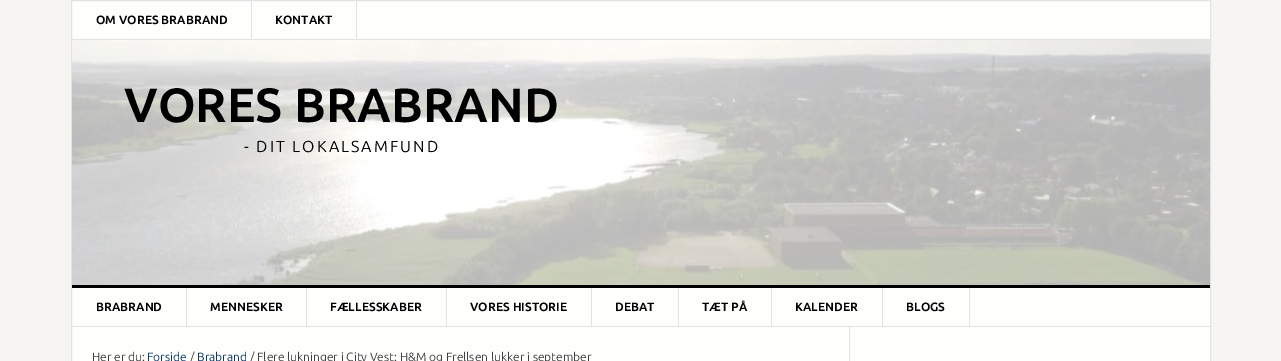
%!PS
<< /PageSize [1281 361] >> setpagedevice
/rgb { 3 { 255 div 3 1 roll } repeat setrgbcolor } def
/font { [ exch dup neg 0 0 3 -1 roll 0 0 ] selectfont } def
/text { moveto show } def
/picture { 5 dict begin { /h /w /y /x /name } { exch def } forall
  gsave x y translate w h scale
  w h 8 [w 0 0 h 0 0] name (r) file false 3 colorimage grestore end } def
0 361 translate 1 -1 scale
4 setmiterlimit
246 245 242 rgb
0 0 1281 361 rectfill
254 254 253 rgb
71.5 0.5 moveto 1139 0 rlineto 0 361 rlineto -1139 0 rlineto closepath gsave fill grestore
227 227 227 rgb
stroke
72 39 1138 1 rectfill
251 1 1 38 rectfill
356 1 1 38 rectfill
(img_01.rgb) 72 40 1138 245 picture
0 0 0 rgb
72 285 1138 3 rectfill
227 227 227 rgb
72 326 1138 1 rectfill
186 288 1 38 rectfill
306 288 1 38 rectfill
446 288 1 38 rectfill
591 288 1 38 rectfill
678 288 1 38 rectfill
771 288 1 38 rectfill
882 288 1 38 rectfill
969 288 1 38 rectfill
849 327 1 34 rectfill
/Ubuntu-Bold 12 font
0 0 0 rgb
(OM VORES BRABRAND) 96 24 text
(KONTAKT) 275 24 text
/Ubuntu-Bold 48 font
(VORES BRABRAND) 124 122 text
/Ubuntu-Regular 16 font
244 152 moveto 2 0 (- DIT LOKALSAMFUND) ashow
/Ubuntu-Bold 12 font
(BRABRAND) 96 311 text
(MENNESKER) 210 311 text
(FÆLLESSKABER) 330 311 text
(VORES HISTORIE) 470 311 text
(DEBAT) 615 311 text
(TÆT PÅ) 702 311 text
(KALENDER) 795 311 text
(BLOGS) 906 311 text
/Ubuntu-Regular 12 font
63 63 63 rgb
(Her er du:) 92 361 text
13 58 99 rgb
(Forside) 147 361 text
63 63 63 rgb
(/) 190 361 text
13 58 99 rgb
(Brabrand) 197 361 text
63 63 63 rgb
(/ Flere lukninger i City Vest: H&M og Frellsen lukker i september) 250 361 text
showpage
